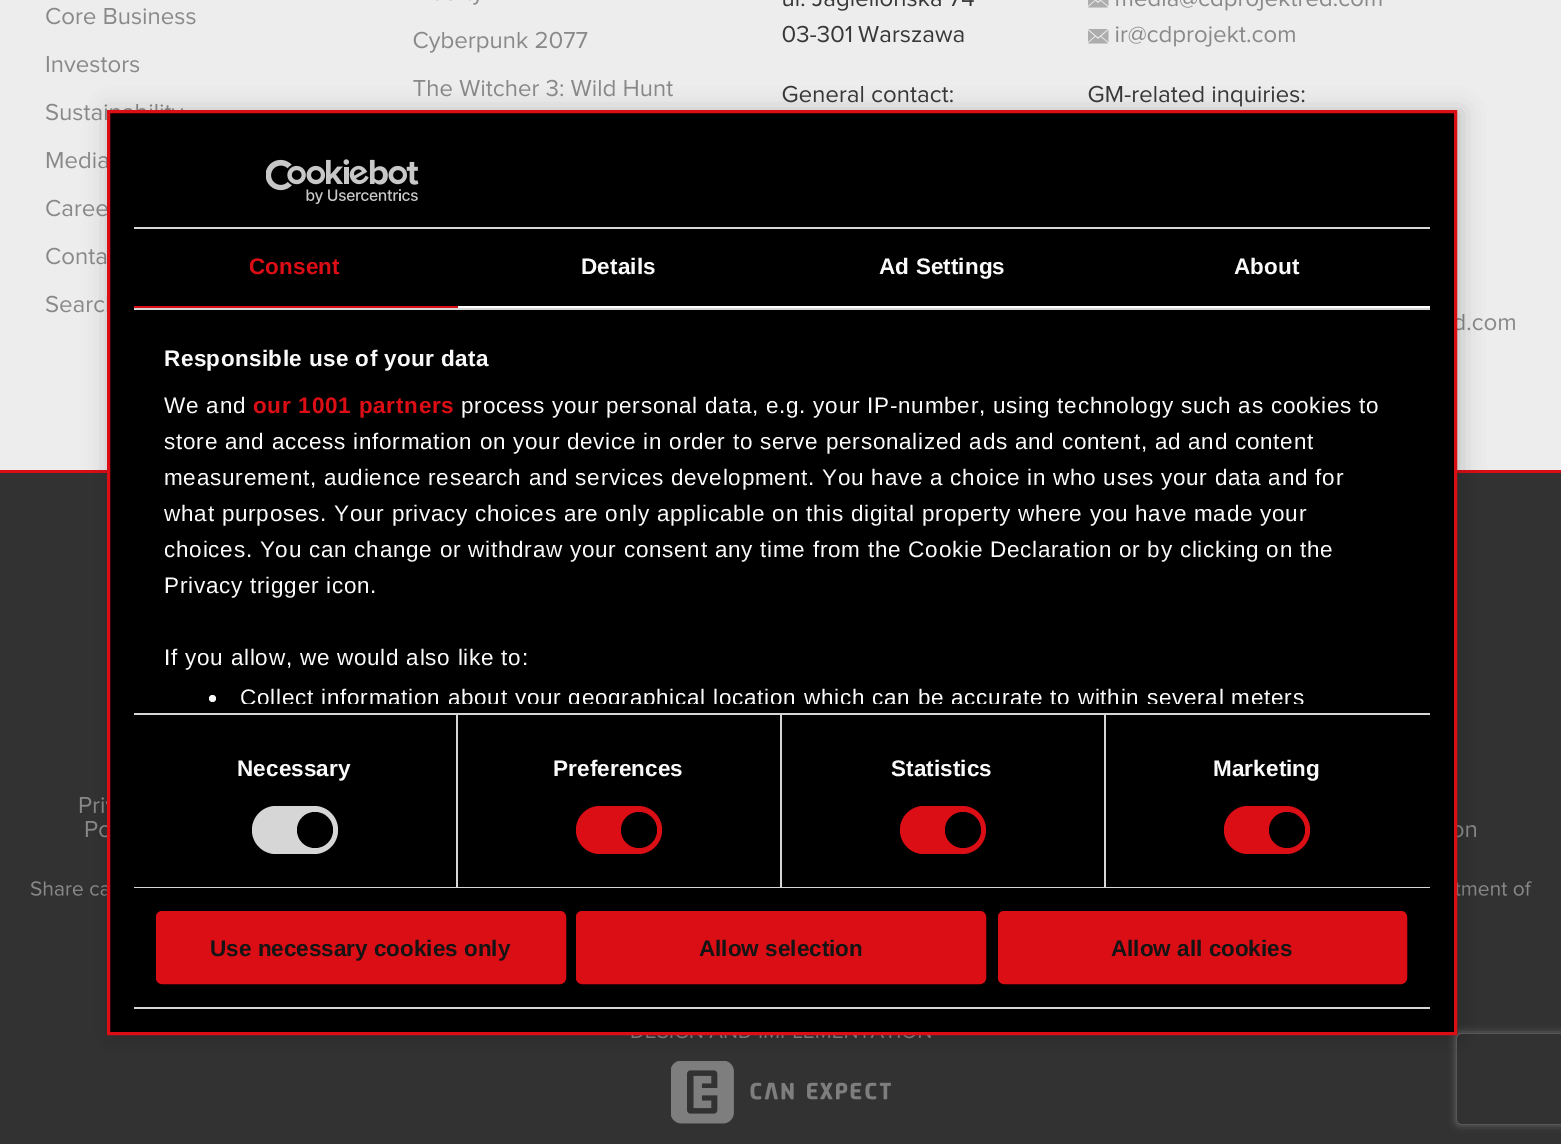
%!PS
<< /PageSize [1561 1144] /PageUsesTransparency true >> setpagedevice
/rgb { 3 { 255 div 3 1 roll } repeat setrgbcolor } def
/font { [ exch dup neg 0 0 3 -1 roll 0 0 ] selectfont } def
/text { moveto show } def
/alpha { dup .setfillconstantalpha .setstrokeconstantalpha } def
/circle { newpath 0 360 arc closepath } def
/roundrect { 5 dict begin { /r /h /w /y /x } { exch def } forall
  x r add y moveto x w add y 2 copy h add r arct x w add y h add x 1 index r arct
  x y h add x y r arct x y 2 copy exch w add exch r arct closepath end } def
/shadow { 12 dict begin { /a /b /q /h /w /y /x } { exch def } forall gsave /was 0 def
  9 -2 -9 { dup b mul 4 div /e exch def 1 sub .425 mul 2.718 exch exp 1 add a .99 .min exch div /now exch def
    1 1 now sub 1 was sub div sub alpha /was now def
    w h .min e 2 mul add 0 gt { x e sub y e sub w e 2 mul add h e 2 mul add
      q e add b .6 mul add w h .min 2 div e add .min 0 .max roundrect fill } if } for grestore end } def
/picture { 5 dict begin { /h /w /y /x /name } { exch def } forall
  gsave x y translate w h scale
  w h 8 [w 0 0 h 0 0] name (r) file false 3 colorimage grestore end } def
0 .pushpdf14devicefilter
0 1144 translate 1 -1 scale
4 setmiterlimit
237 237 237 rgb
0 0 1561 1144 rectfill
219 13 20 rgb
0 470 1561 3 rectfill
(img_01.rgb) 46 7 150 18 picture
(img_02.rgb) 46 56 94 17 picture
(img_03.rgb) 46 103 138 18 picture
(img_04.rgb) 46 152 61 17 picture
(img_05.rgb) 46 199 61 18 picture
(img_06.rgb) 46 247 61 18 picture
(img_07.rgb) 46 295 61 18 picture
(img_08.rgb) 436 0 43 5 picture
(img_09.rgb) 413 31 175 22 picture
(img_10.rgb) 413 79 260 18 picture
(img_11.rgb) 783 0 191 11 picture
(img_12.rgb) 782 25 70 18 picture
(img_13.rgb) 858 26 106 17 picture
(img_14.rgb) 782 85 171 18 picture
(img_15.rgb) 1088 0 21 8 picture
(img_16.rgb) 1116 0 266 11 picture
(img_17.rgb) 1088 29 21 15 picture
(img_18.rgb) 1116 26 179 21 picture
(img_19.rgb) 1088 85 217 22 picture
(img_20.rgb) 1457 314 58 17 picture
50 50 50 rgb
0 473 1561 671 rectfill
(img_21.rgb) 79 797 28 16 picture
(img_22.rgb) 85 821 22 17 picture
(img_23.rgb) 1457 825 19 13 picture
(img_24.rgb) 31 881 1501 15 picture
(img_25.rgb) 631 1035 300 4 picture
(img_26.rgb) 671 1061 220 63 picture
18 18 18 rgb
107 110 1356 931 0 10.5 0.19 shadow
gsave
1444 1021 moveto 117 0 rlineto 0 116 rlineto -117 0 rlineto closepath 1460 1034 moveto 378 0 rlineto 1.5 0 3 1.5 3 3 rcurveto 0 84 rlineto 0 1.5 -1.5 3 -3 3 rcurveto -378 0 rlineto -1.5 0 -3 -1.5 -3 -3 rcurveto 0 -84 rlineto 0 -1.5 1.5 -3 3 -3 rcurveto closepath eoclip newpath
128 128 128 rgb
1457 1034 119 90 3 4 1 shadow
grestore
0 0 0 rgb
108.5 111.5 moveto 1347 0 rlineto 0 922 rlineto -1347 0 rlineto closepath gsave fill grestore
219 13 21 rgb
3 setlinewidth
stroke
214 214 214 rgb
134 227 1296 2 rectfill
(img_27.rgb) 266 159 153 45 picture
134 308 1296 2 rectfill
219 13 21 rgb
134 306 324 2 rectfill
255 255 255 rgb
458 306 972 2 rectfill
214 214 214 rgb
456 714 2 173 rectfill
780 714 2 173 rectfill
1104 714 2 173 rectfill
134 713 1296 2 rectfill
250 250 250 rgb
212.5 698.5 3.5 circle fill
214 214 214 rgb
134 887 1296 1 rectfill
252 806 86 48 24 roundrect fill
0 0 0 rgb
315 830 18 circle fill
219 13 21 rgb
576 806 86 48 24 roundrect fill
0 0 0 rgb
639 830 18 circle fill
219 13 21 rgb
900 806 86 48 24 roundrect fill
0 0 0 rgb
963 830 18 circle fill
219 13 21 rgb
1224 806 86 48 24 roundrect fill
0 0 0 rgb
1287 830 18 circle fill
214 214 214 rgb
134 1007 1296 2 rectfill
219 13 21 rgb
157.5 912.5 407 70 4.5 roundrect gsave fill grestore
stroke
577.5 912.5 407 70 4.5 roundrect gsave fill grestore
stroke
999.5 912.5 406 70 4.5 roundrect gsave fill grestore
stroke
/LiberationSans-Bold 22.5 font
249 274 moveto 0.1 0 (Consent) ashow
250 250 250 rgb
581 274 moveto 0.1 0 (Details) ashow
879 274 moveto 0.1 0 (Ad Settings) ashow
1234 274 moveto 0.1 0 (About) ashow
164 366 moveto 0.4 0 (Responsible use of your data) ashow
/LiberationSans-Regular 22.5 font
164 413 moveto 0.75 0 (We and) ashow
/LiberationSans-Bold 22.5 font
219 13 21 rgb
253 413 moveto 0.75 0 (our 1001 partners) ashow
/LiberationSans-Regular 22.5 font
250 250 250 rgb
461 413 moveto 0.75 0 (process your personal data, e.g. your IP-number, using technology such as cookies to) ashow
164 449 moveto 0.75 0 (store and access information on your device in order to serve personalized ads and content, ad and content) ashow
164 485 moveto 0.75 0 (measurement, audience research and services development. You have a choice in who uses your data and for) ashow
164 521 moveto 0.75 0 (what purposes. Your privacy choices are only applicable on this digital property where you have made your) ashow
164 557 moveto 0.75 0 (choices. You can change or withdraw your consent any time from the Cookie Declaration or by clicking on the) ashow
164 593 moveto 0.75 0 (Privacy trigger icon.) ashow
164 665 moveto 0.75 0 (If you allow, we would also like to:) ashow
gsave
141 318 1280 386 rectclip
240 705 moveto 0.75 0 (Collect information about your geographical location which can be accurate to within several meters) ashow
grestore
/LiberationSans-Bold 22.5 font
237 776 moveto 0.1 0 (Necessary) ashow
553 776 moveto 0.1 0 (Preferences) ashow
891 776 moveto 0.1 0 (Statistics) ashow
1213 776 moveto 0.1 0 (Marketing) ashow
20 20 20 rgb
(Use necessary cookies only) 210 956 text
(Allow selection) 699 956 text
(Allow all cookies) 1111 956 text
.poppdf14devicefilter showpage
